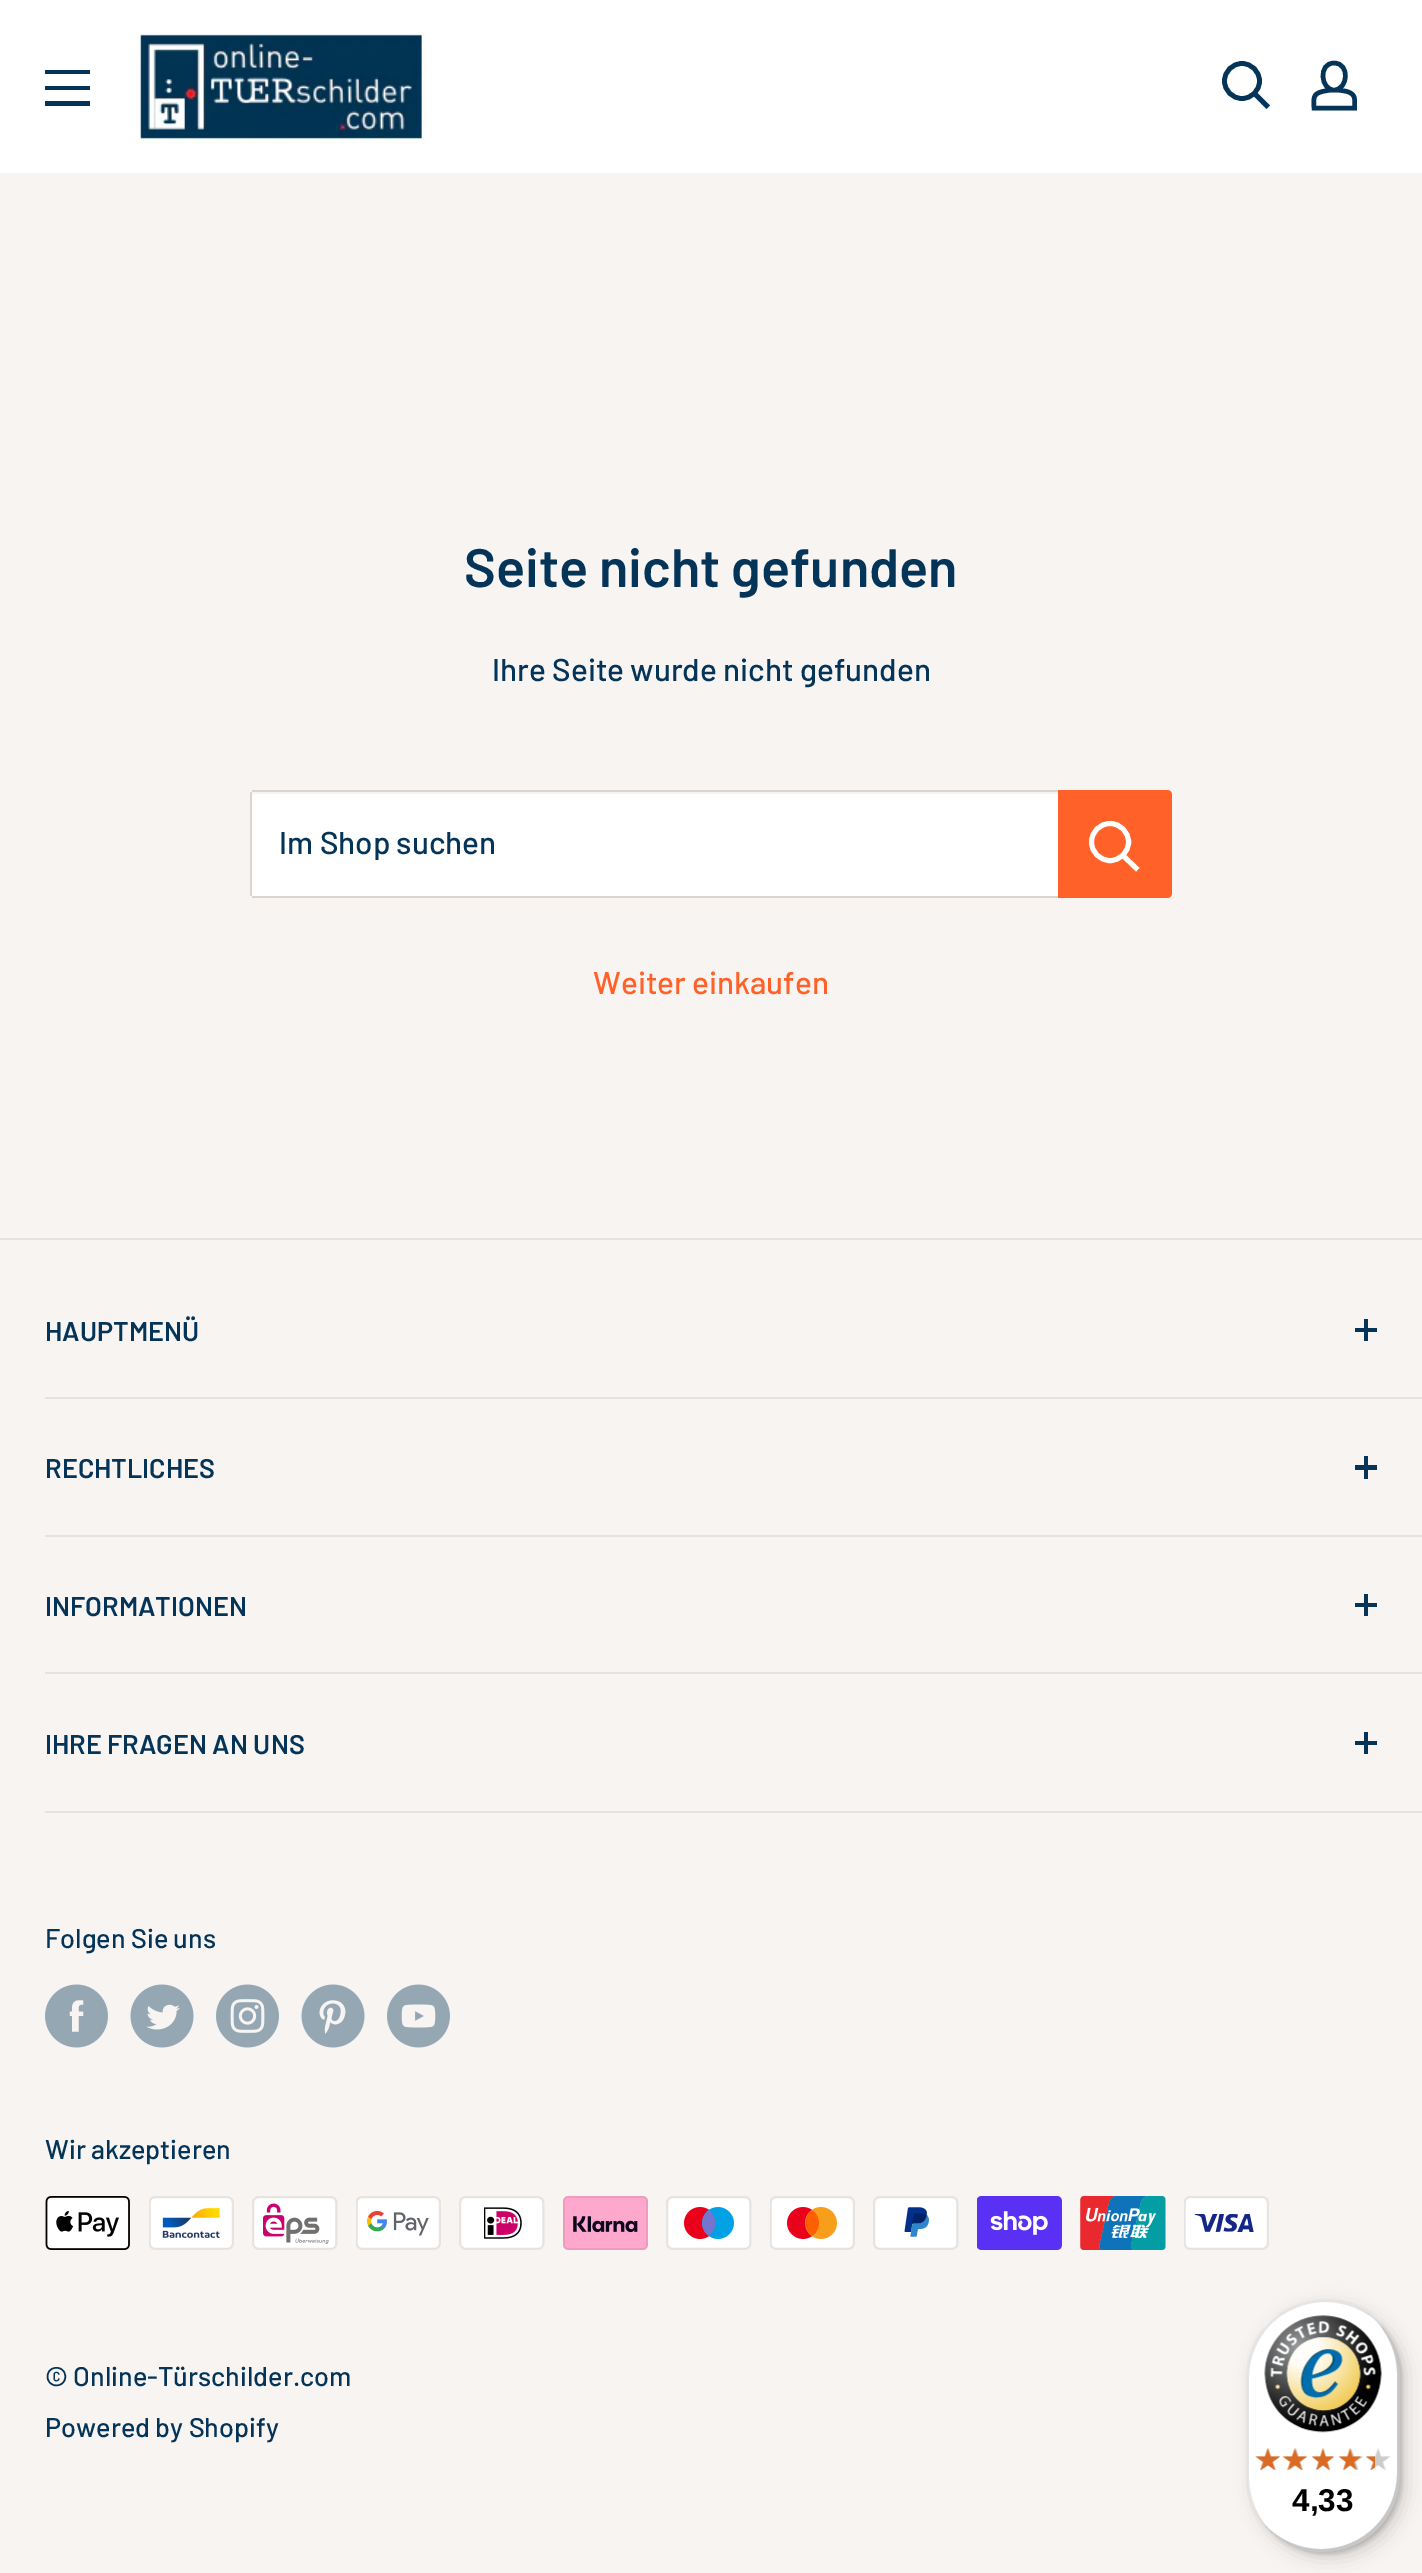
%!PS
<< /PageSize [1422 2573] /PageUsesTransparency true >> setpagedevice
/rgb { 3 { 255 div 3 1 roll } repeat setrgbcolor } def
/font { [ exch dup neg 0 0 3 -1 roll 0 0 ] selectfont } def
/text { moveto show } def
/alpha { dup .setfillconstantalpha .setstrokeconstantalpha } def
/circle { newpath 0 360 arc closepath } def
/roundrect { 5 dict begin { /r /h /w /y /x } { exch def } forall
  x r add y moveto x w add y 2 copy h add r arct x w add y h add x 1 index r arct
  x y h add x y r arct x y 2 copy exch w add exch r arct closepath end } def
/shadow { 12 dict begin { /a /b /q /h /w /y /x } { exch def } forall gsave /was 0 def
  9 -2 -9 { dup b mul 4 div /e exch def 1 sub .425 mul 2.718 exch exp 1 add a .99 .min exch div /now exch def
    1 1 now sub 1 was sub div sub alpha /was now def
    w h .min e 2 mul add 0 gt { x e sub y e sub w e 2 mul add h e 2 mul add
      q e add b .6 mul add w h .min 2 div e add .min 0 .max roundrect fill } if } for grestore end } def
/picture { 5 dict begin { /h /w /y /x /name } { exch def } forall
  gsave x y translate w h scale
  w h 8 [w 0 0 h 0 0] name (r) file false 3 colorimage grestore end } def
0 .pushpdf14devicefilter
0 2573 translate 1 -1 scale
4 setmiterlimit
247 244 242 rgb
0 0 1422 2573 rectfill
255 255 255 rgb
0 0 1422 173 rectfill
4 52 88 rgb
45 101 moveto 45 0 rlineto 0 5 rlineto -45 0 rlineto closepath 45 70 moveto 45 0 rlineto 0 4 rlineto -45 0 rlineto closepath 45 86 moveto 45 0 rlineto 0 4 rlineto -45 0 rlineto closepath eofill
(img_01.rgb) 135 32 293 112 picture
4.7 setlinewidth
2 setlinecap
1266.5 105.5 moveto -11.5 -11.5 rlineto stroke
0 setlinecap
1242 81 17.5 circle stroke
4.5 setlinewidth
1334 90 moveto 4.5 0 8.5 0.5 13 1.5 rcurveto 9.5 3 7.5 8 7.5 16.5 rcurveto -40.5 0 rlineto 0 -9 -2 -14 8.5 -16.5 rcurveto 4 -1 8 -1.5 11.5 -1.5 rcurveto closepath 1334 90 moveto -13.5 0 -16 -27 0 -27 rcurveto 16.5 0 14 27 0 27 rcurveto closepath stroke
255 255 255 rgb
255 790 moveto 803 0 rlineto 0 108 rlineto -803 0 rlineto -3 0 -5 -2 -5 -5 rcurveto 0 -98 rlineto 0 -3 2 -5 5 -5 rcurveto closepath fill
246 245 243 rgb
254 794 moveto 804 0 rlineto 0 -2 rlineto -804 0 rlineto -2 1 rlineto 0 3 rlineto 0 -1 1 -2 2 -2 rcurveto closepath fill
220 213 207 rgb
252 790 806 2 rectfill
252 896 806 2 rectfill
250 792 2 104 rectfill
255 97 40 rgb
1058 790 moveto 109 0 rlineto 3 0 5 2 5 5 rcurveto 0 98 rlineto 0 3 -2 5 -5 5 rcurveto -109 0 rlineto closepath fill
255 255 255 rgb
4.9 setlinewidth
2 setlinecap
1136 868 moveto -12.5 -12 rlineto stroke
0 setlinecap
1110 842 18.5 circle stroke
231 226 222 rgb
0 1238 1422 2 rectfill
45 1397 1377 2 rectfill
4 52 88 rgb
1364 1319 4 22 rectfill
1355 1328 22 4 rectfill
231 226 222 rgb
45 1535 1377 2 rectfill
4 52 88 rgb
1364 1456 4 23 rectfill
1355 1465 22 5 rectfill
231 226 222 rgb
45 1672 1377 2 rectfill
4 52 88 rgb
1364 1594 4 22 rectfill
1355 1603 22 4 rectfill
231 226 222 rgb
45 1811 1377 2 rectfill
4 52 88 rgb
1364 1732 4 22 rectfill
1355 1741 22 4 rectfill
(img_02.rgb) 45 1984 63 64 picture
(img_03.rgb) 130 1984 64 64 picture
(img_04.rgb) 216 1984 63 64 picture
(img_05.rgb) 301 1984 64 64 picture
(img_06.rgb) 387 1984 63 64 picture
(img_07.rgb) 45 2196 85 54 picture
(img_08.rgb) 149 2196 85 54 picture
(img_09.rgb) 252 2196 86 54 picture
(img_10.rgb) 356 2196 85 54 picture
(img_11.rgb) 459 2196 86 54 picture
(img_12.rgb) 563 2196 85 54 picture
(img_13.rgb) 666 2196 86 54 picture
(img_14.rgb) 770 2196 85 54 picture
(img_15.rgb) 873 2196 86 54 picture
(img_16.rgb) 977 2196 85 54 picture
(img_17.rgb) 1080 2196 86 54 picture
(img_18.rgb) 1184 2196 85 54 picture
0 0 0 rgb
1253 2306 153 252 76.5 9 0.15 shadow
1249 2302 153 252 76.5 2 0.15 shadow
255 255 255 rgb
1247 2300 153 252 76.5 roundrect fill
0.1 alpha
0 0 0 rgb
1325 2302 moveto 22 0 42 9 56 24 rcurveto -14 -16 -35 -26 -57 -26 rcurveto -43 0 -77 34 -77 76 rcurveto 0 100 rlineto 0 22 10 43 26 57 rcurveto -15 -14 -24 -34 -24 -56 rcurveto 0 -99 rlineto 0 -42 34 -76 76 -76 rcurveto closepath fill
0.2 alpha
1266 2526 moveto 14 16 35 26 58 26 rcurveto 42 0 76 -34 76 -76 rcurveto 0 -100 rlineto 0 -22 -10 -43 -26 -57 rcurveto 14 14 23 34 23 55 rcurveto 0 99 rlineto 0 42 -34 76 -76 76 rcurveto -21 0 -41 -9 -55 -23 rcurveto closepath fill
50 50 50 rgb
1271 2531 moveto 13 13 32 21 53 21 rcurveto 42 0 76 -34 76 -76 rcurveto 0 -100 rlineto 0 -20 -8 -39 -21 -52 rcurveto 12 13 19 31 19 51 rcurveto 0 99 rlineto 0 42 -34 76 -76 76 rcurveto -20 0 -38 -7 -51 -19 rcurveto closepath fill
0.3 alpha
255 255 255 rgb
1266 2526 moveto 14 16 35 26 58 26 rcurveto 42 0 76 -34 76 -76 rcurveto 0 -100 rlineto 0 -22 -10 -43 -26 -57 rcurveto 15 14 24 34 24 56 rcurveto 0 99 rlineto 0 42 -34 76 -76 76 rcurveto -22 0 -42 -9 -56 -24 rcurveto closepath fill
1 alpha
(img_19.rgb) 1264 2315 118 118 picture
(img_20.rgb) 1255 2448 25 23 picture
(img_21.rgb) 1285 2448 22 22 picture
(img_22.rgb) 1312 2448 22 23 picture
(img_23.rgb) 1339 2448 25 22 picture
(img_24.rgb) 1366 2448 25 23 picture
(img_25.rgb) 1255 2448 26 22 picture
(img_26.rgb) 1282 2448 26 22 picture
(img_27.rgb) 1311 2448 24 22 picture
(img_28.rgb) 1338 2448 24 22 picture
(img_29.rgb) 1365 2456 10 14 picture
/Barlow-SemiBold 54 font
4 52 88 rgb
(Seite nicht gefunden) 464 587 text
/Barlow-Medium 31.5 font
(Ihre Seite wurde nicht gefunden) 492 681 text
(Im Shop suchen) 279 854 text
255 97 40 rgb
(Weiter einkaufen) 593 994 text
/Barlow-SemiBold 27 font
4 52 88 rgb
(HAUPTMENÜ) 45 1341 text
(RECHTLICHES) 45 1478 text
(INFORMATIONEN) 45 1616 text
(IHRE FRAGEN AN UNS) 45 1754 text
/Barlow-Medium 27 font
(Folgen Sie uns) 45 1948 text
(Wir akzeptieren) 45 2159 text
(© Online-Türschilder.com) 45 2386 text
(Powered by Shopify) 45 2437 text
/LiberationSans-Bold 31.5 font
0 0 0 rgb
(4,33) 1292 2511 text
.poppdf14devicefilter showpage
